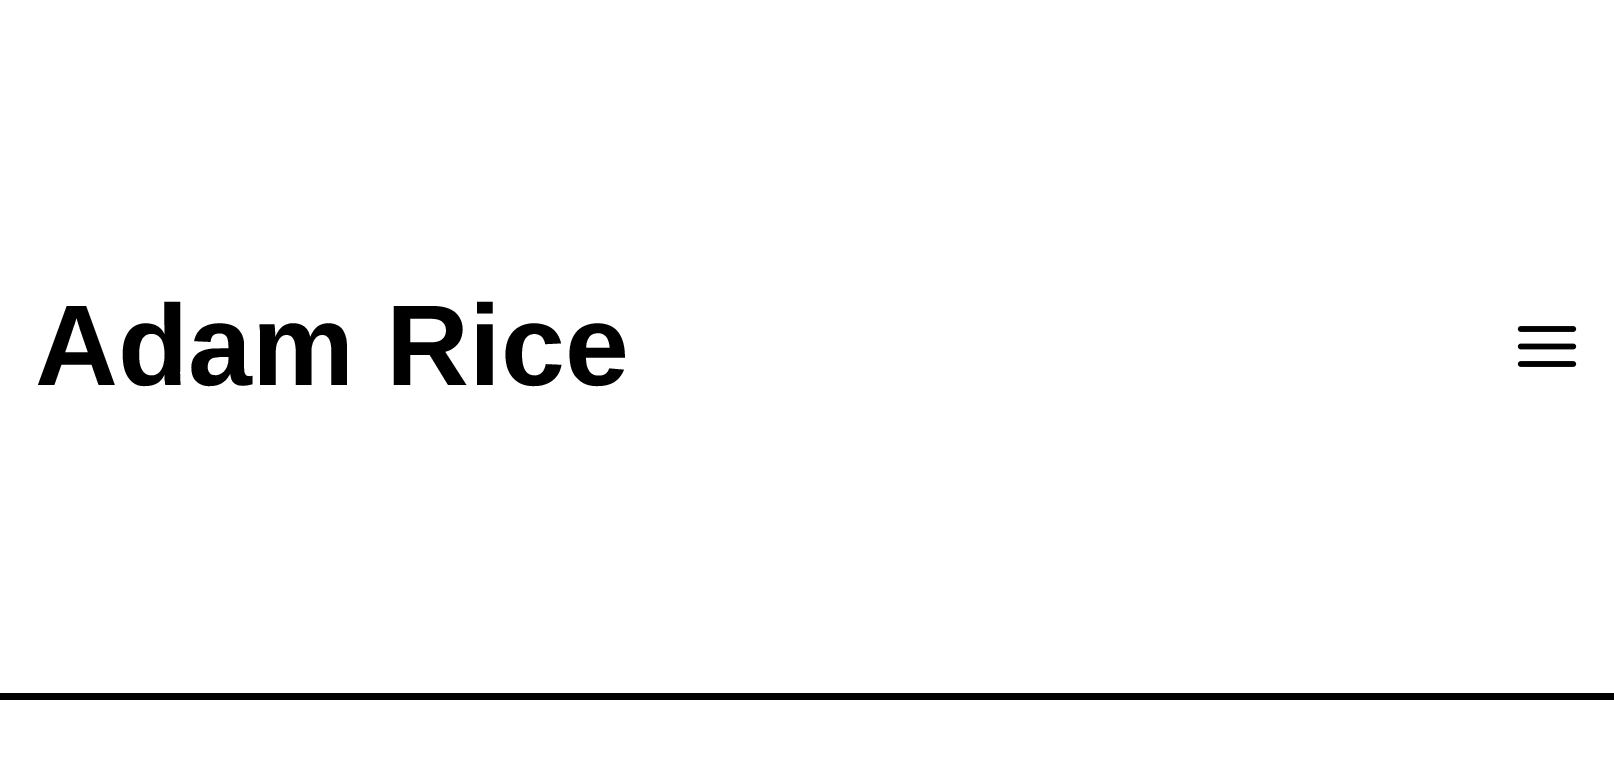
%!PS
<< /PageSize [1614 763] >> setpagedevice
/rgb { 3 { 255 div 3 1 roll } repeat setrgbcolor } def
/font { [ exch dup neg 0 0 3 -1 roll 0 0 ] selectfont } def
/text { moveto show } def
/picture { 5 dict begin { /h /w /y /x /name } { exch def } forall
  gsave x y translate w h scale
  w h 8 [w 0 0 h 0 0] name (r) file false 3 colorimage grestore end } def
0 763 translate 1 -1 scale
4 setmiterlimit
255 255 255 rgb
0 0 1614 763 rectfill
0 0 0 rgb
0 693 1614 7 rectfill
(img_01.rgb) 1517 326 60 41 picture
/LiberationSans-Bold 115 font
(Adam Rice) 35 385 text
showpage
